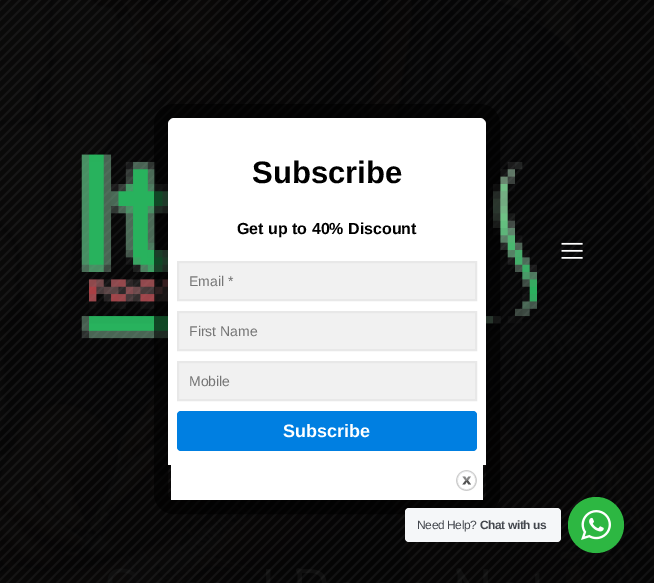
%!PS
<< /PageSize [654 583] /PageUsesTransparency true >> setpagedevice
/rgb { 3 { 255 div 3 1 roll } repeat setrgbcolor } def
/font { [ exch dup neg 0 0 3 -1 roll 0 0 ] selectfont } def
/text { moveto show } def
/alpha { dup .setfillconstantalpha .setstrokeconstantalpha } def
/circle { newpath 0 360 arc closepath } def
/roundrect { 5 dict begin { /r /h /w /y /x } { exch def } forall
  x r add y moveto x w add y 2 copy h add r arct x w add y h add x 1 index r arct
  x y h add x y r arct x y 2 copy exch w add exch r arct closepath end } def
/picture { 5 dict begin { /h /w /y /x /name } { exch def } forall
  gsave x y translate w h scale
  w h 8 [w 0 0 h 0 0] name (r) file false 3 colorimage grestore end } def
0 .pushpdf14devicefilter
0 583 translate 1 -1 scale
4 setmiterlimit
255 255 255 rgb
0 0 654 583 rectfill
(img_01.rgb) 0 0 654 583 picture
(img_04.rgb) 0 0 654 583 picture
(img_02.rgb) 81 154 456 185 picture
(img_03.rgb) 561 242 22 17 picture
0.6 alpha
0 0 0 rgb
14 setlinewidth
161 111 332 396 13 roundrect stroke
1 alpha
255 255 255 rgb
174 118 moveto 306 0 rlineto 3 0 6 3 6 6 rcurveto 0 341 rlineto -318 0 rlineto 0 -341 rlineto 0 -3 3 -6 6 -6 rcurveto closepath fill
171 465 312 35 rectfill
241 241 241 rgb
178 262 moveto 298 0 rlineto 0 38 rlineto -298 0 rlineto closepath gsave fill grestore
232 232 232 rgb
2 setlinewidth
stroke
241 241 241 rgb
178 312 moveto 298 0 rlineto 0 38 rlineto -298 0 rlineto closepath gsave fill grestore
232 232 232 rgb
stroke
241 241 241 rgb
178 362 moveto 298 0 rlineto 0 38 rlineto -298 0 rlineto closepath gsave fill grestore
232 232 232 rgb
stroke
0 127 225 rgb
177 411 300 40 4 roundrect fill
(img_05.rgb) 456 470 21 21 picture
245 247 249 rgb
405 508 156 34 4 roundrect fill
45 183 66 rgb
596 525 28 circle fill
(img_06.rgb) 581 510 30 30 picture
/LiberationSans-Bold 31 font
0 0 0 rgb
(Subscribe) 252 183 text
/LiberationSans-Bold 16 font
(Get up to 40% Discount) 237 234 text
/LiberationSans-Regular 14 font
117 117 117 rgb
(Email *) 189 286 text
(First Name) 189 336 text
(Mobile) 189 386 text
/LiberationSans-Bold 18 font
255 255 255 rgb
(Subscribe) 283 437 text
/LiberationSans-Regular 12 font
67 71 78 rgb
417 529 moveto -0.4 0 (Need Help?) ashow
/LiberationSans-Bold 12 font
480 529 moveto -0.4 0 (Chat with us) ashow
.poppdf14devicefilter showpage
